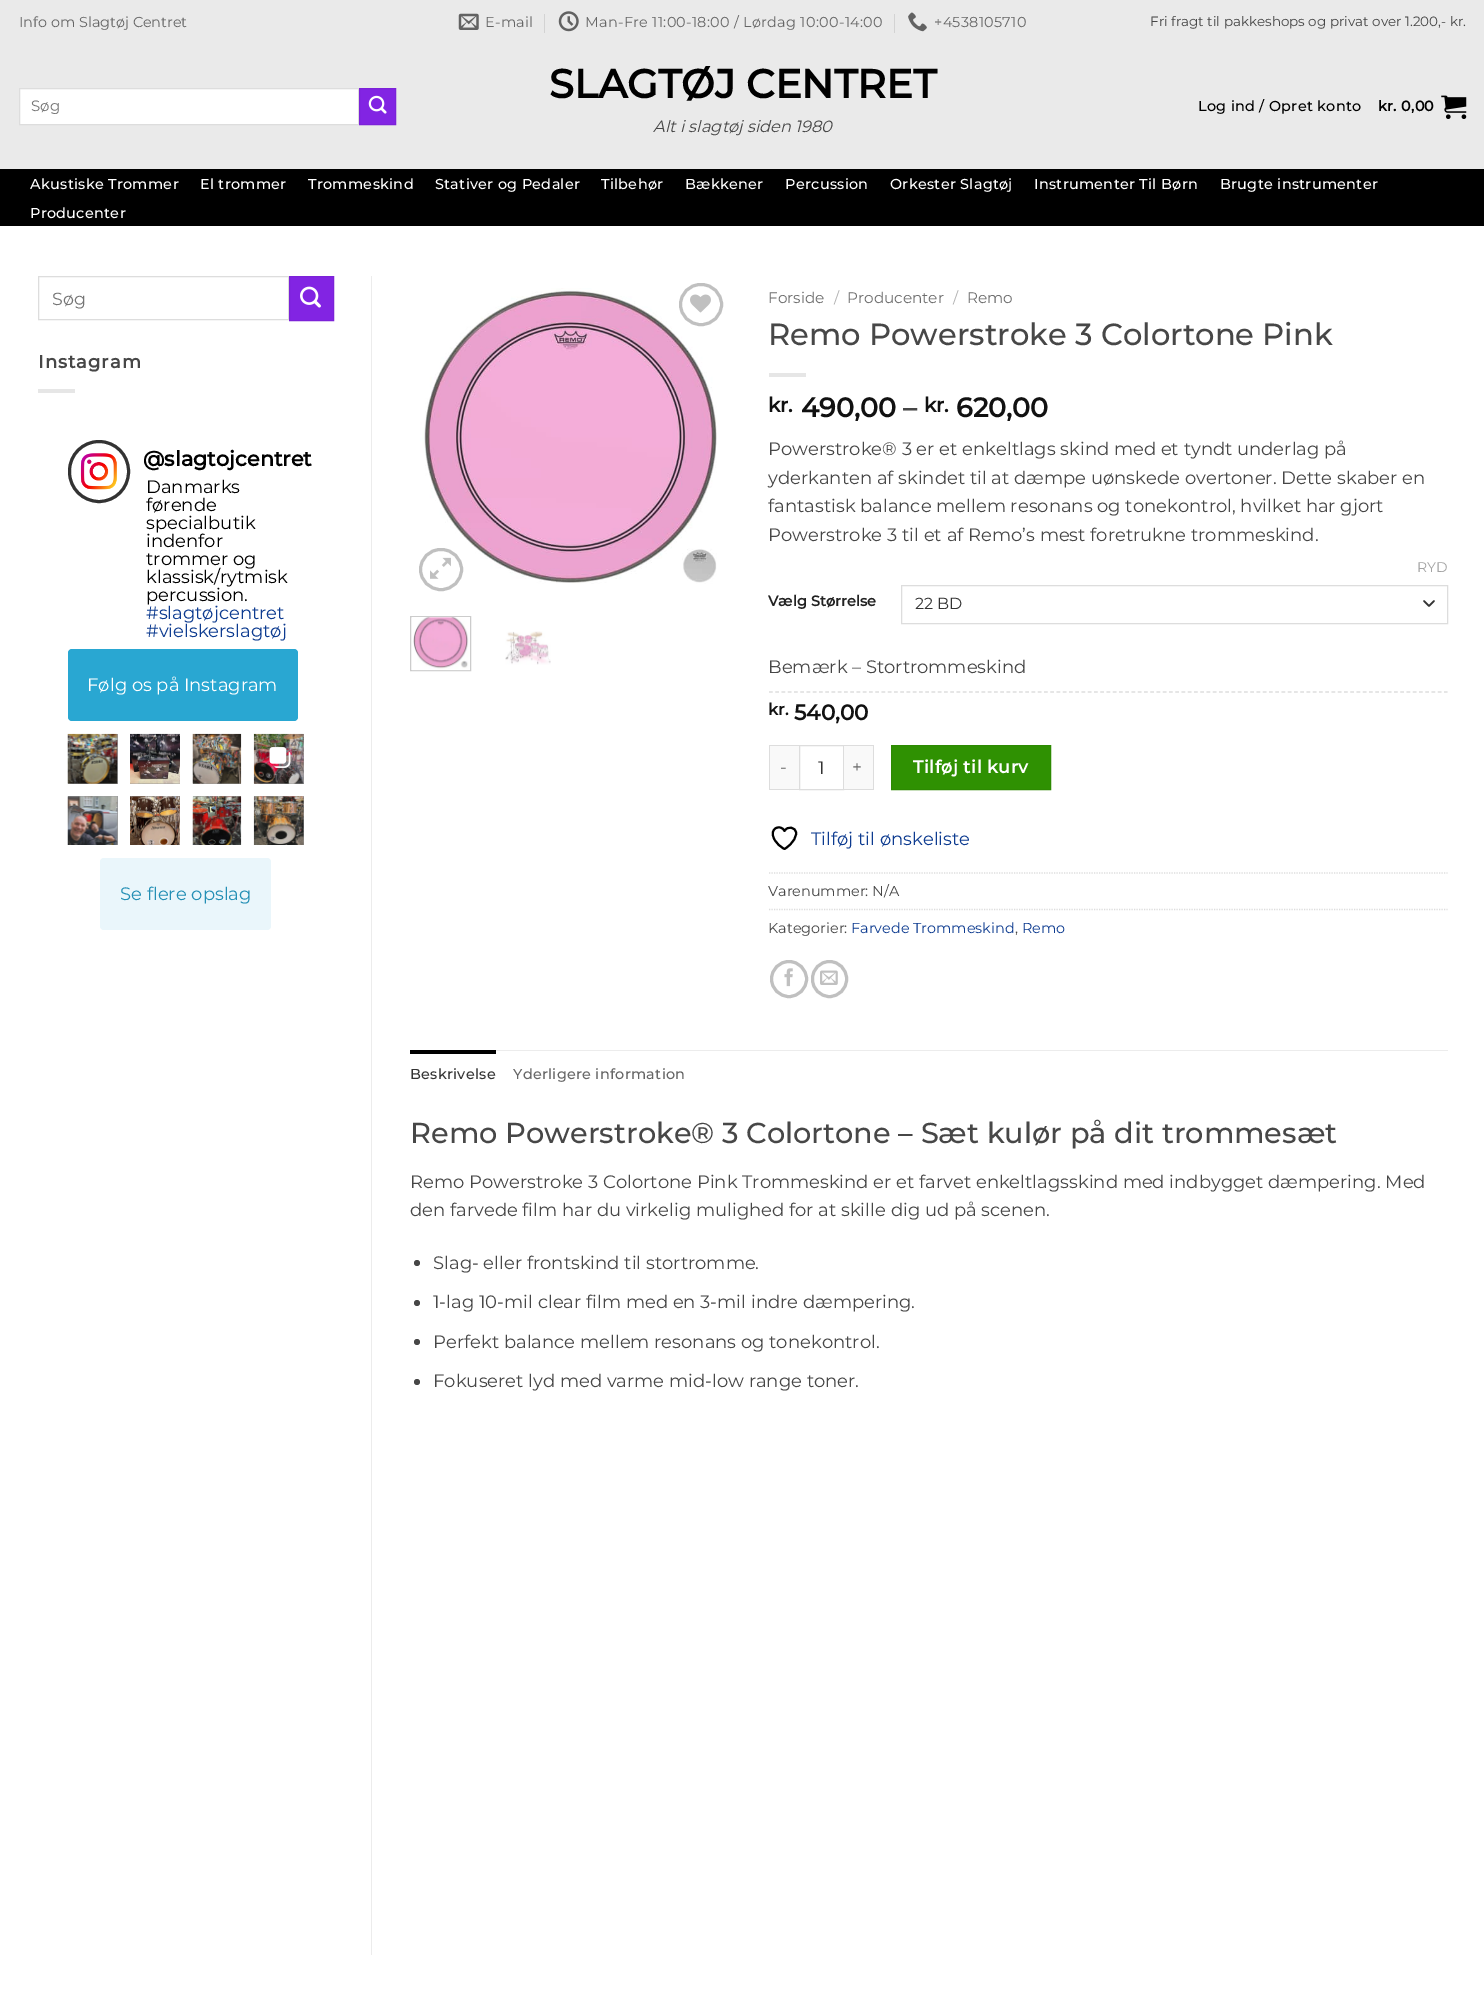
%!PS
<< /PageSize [1484 2000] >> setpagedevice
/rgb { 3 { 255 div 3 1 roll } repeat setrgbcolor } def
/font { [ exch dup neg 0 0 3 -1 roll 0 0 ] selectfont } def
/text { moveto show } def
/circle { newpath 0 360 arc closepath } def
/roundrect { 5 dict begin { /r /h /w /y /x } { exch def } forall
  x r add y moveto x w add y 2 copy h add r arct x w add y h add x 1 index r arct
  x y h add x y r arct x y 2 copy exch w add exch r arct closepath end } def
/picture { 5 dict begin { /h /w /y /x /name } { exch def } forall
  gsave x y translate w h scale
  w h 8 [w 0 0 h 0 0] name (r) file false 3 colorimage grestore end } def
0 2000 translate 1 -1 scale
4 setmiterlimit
255 255 255 rgb
0 0 1484 2000 rectfill
234 234 234 rgb
0 0 1484 169 rectfill
(img_01.rgb) 458 13 21 17 picture
211 211 211 rgb
544 14 1 19 rectfill
(img_02.rgb) 558 11 21 21 picture
894 14 1 19 rectfill
(img_03.rgb) 908 12 19 20 picture
255 255 255 rgb
19.5 88.5 moveto 339 0 rlineto 0 36 rlineto -339 0 rlineto closepath gsave fill grestore
221 221 221 rgb
stroke
130 36 227 rgb
359.5 88.5 moveto 36 0 rlineto 0 36 rlineto -36 0 rlineto closepath gsave fill grestore
124 34 216 rgb
stroke
(img_04.rgb) 368 95 19 19 picture
(img_05.rgb) 1441 95 26 24 picture
0 0 0 rgb
0 169 1484 57 rectfill
221 221 221 rgb
38.5 276.5 250 43 rectstroke
130 36 227 rgb
289.5 276.5 moveto 44 0 rlineto 0 44 rlineto -44 0 rlineto closepath gsave fill grestore
124 34 216 rgb
stroke
(img_06.rgb) 300 286 21 22 picture
230 230 230 rgb
38 389 37 4 rectfill
51 51 51 rgb
3 setlinewidth
69.5 441.5 59 60 29.5 roundrect stroke
(img_07.rgb) 80 453 37 37 picture
41 167 210 rgb
68 649 230 72 4 roundrect fill
153 153 153 rgb
68 734 50 50 rectfill
(img_08.rgb) 67 733 51 51 picture
130 783 50 1 rectfill
(img_09.rgb) 130 733 50 51 picture
193 783 48 1 rectfill
(img_10.rgb) 192 733 50 51 picture
254 734 50 50 rectfill
(img_11.rgb) 253 733 51 51 picture
(img_12.rgb) 269 747 22 21 picture
68 796 50 49 rectfill
(img_13.rgb) 67 796 51 49 picture
130 796 50 1 rectfill
(img_14.rgb) 130 796 50 49 picture
193 796 48 1 rectfill
(img_15.rgb) 192 796 50 49 picture
254 796 50 49 rectfill
(img_16.rgb) 253 796 51 49 picture
234 246 251 rgb
100 858 171 72 4 roundrect fill
236 236 236 rgb
371 276 1 1679 rectfill
(img_18.rgb) 420 288 297 296 picture
192 192 192 rgb
680.5 284.5 41 40 20 roundrect stroke
(img_17.rgb) 690 294 21 19 picture
420.5 549.5 41 40 20 roundrect stroke
(img_19.rgb) 430 557 21 22 picture
204 204 204 rgb
1 setlinewidth
410.5 616.5 60 54 rectstroke
(img_20.rgb) 412 617 58 54 picture
(img_21.rgb) 505 631 46 34 picture
230 230 230 rgb
769 373 37 4 rectfill
51 51 51 rgb
1.7 setlinewidth
1 setlinecap
1 setlinejoin
1424 601 moveto 5 5 rlineto 5 -5 rlineto stroke
221 221 221 rgb
1 setlinewidth
0 setlinecap
0 setlinejoin
901.5 585.5 546 38 rectstroke
1.2 setlinewidth
[3.75 2.5] 0 setdash
769 692 moveto 678.5 0 rlineto stroke
249 249 249 rgb
770 746 29 43 rectfill
221 221 221 rgb
769 745 30 1 rectfill
769 789 30 1 rectfill
769 745 1 45 rectfill
1 setlinewidth
[] 0 setdash
799.5 745.5 44 44 rectstroke
249 249 249 rgb
844 746 29 43 rectfill
221 221 221 rgb
844 745 30 1 rectfill
873 745 1 45 rectfill
844 789 30 1 rectfill
47 145 2 rgb
891.5 745.5 moveto 159 0 rlineto 0 44 rlineto -159 0 rlineto closepath gsave fill grestore
45 138 2 rgb
stroke
0 0 0 rgb
2 setlinewidth
1 setlinecap
1 setlinejoin
796 833 moveto 0 -6 -9 -7.5 -11.5 -2 rcurveto -3.5 -7.5 -16.5 -3 -10 8.5 rcurveto 2 4 6 7.5 10 9.5 rcurveto 0 0 11.5 -6.5 11.5 -16 rcurveto closepath stroke
221 221 221 rgb
1.2 setlinewidth
0 setlinecap
0 setlinejoin
[1.25 1.25] 0 setdash
769 873 moveto 678.5 0 rlineto stroke
769 909.5 moveto 678.5 0 rlineto stroke
192 192 192 rgb
3 setlinewidth
[] 0 setdash
789 979 17.5 circle stroke
(img_22.rgb) 784 968 9 19 picture
812.5 961.5 34 35 17 roundrect stroke
(img_23.rgb) 820 970 18 15 picture
236 236 236 rgb
496 1050 952 1 rectfill
0 0 0 rgb
410 1050 86 4 rectfill
71 71 71 rgb
417 1263 3 circle fill
417 1303 3 circle fill
417 1342 3 circle fill
417 1382 3 circle fill
/Montserrat-Regular 14.4 font
102 102 102 rgb
(Info om Slagtøj Centret) 19 27 text
485 27 moveto 0.3 0 (E-mail) ashow
585 27 moveto 0.3 0 (Man-Fre 11:00-18:00 / Lørdag 10:00-14:00) ashow
934 27 moveto 0.3 0 (+4538105710) ashow
/Montserrat-Regular 13.5 font
71 71 71 rgb
(Fri fragt til pakkeshops og privat over 1.200,- kr.) 1150 26 text
/Montserrat-Regular 15 font
117 117 117 rgb
(Søg) 31 111 text
/Montserrat-Bold 40 font
0 0 0 rgb
(SLAGTØJ CENTRET) 549 98 text
/Montserrat-Italic 16.25 font
71 71 71 rgb
(Alt i slagtøj siden 1980) 653 132 text
/Montserrat-Medium 14.4 font
0 0 0 rgb
1198 111 moveto 0.3 0 (Log ind / Opret konto) ashow
/Montserrat-Bold 14.4 font
1378 111 moveto 0.3 0 (kr. 0,00) ashow
/Montserrat-Medium 14.4 font
255 255 255 rgb
30 189 moveto 0.3 0 (Akustiske Trommer) ashow
200 189 moveto 0.3 0 (El trommer) ashow
308 189 moveto 0.3 0 (Trommeskind) ashow
435 189 moveto 0.3 0 (Stativer og Pedaler) ashow
601 189 moveto 0.3 0 (Tilbehør) ashow
685 189 moveto 0.3 0 (Bækkener) ashow
785 189 moveto 0.3 0 (Percussion) ashow
890 189 moveto 0.3 0 (Orkester Slagtøj) ashow
1034 189 moveto 0.3 0 (Instrumenter Til Børn) ashow
1220 189 moveto 0.3 0 (Brugte instrumenter) ashow
30 218 moveto 0.3 0 (Producenter) ashow
/Montserrat-Regular 17.5 font
117 117 117 rgb
(Søg) 52 305 text
/Montserrat-Bold 18 font
71 71 71 rgb
38 368 moveto 1 0 (Instagram) ashow
/Montserrat-Bold 20.75 font
0 0 0 rgb
(@slagtojcentret) 143 466 text
/Montserrat-Regular 18 font
(Danmarks) 146 493 text
(førende) 146 511 text
(specialbutik) 146 529 text
(indenfor) 146 547 text
(trommer og) 146 565 text
(klassisk/rytmisk) 146 583 text
(percussion.) 146 601 text
13 59 144 rgb
(#slagtøjcentret) 146 619 text
(#vielskerslagtøj) 146 637 text
255 255 255 rgb
(Følg os på Instagram) 87 691 text
35 143 181 rgb
(Se flere opslag) 120 900 text
/Montserrat-Regular 15.25 font
110 110 110 rgb
(Forside) 768 303 text
178 178 178 rgb
(/) 834 303 text
110 110 110 rgb
(Producenter) 847 303 text
178 178 178 rgb
(/) 953 303 text
110 110 110 rgb
(Remo) 967 303 text
/Montserrat-Medium 30.6 font
71 71 71 rgb
(Remo Powerstroke 3 Colortone Pink) 768 345 text
/Montserrat-Bold 20 font
17 17 17 rgb
(kr.) 768 412 text
/Montserrat-Bold 27 font
(490,00) 801 417 text
71 71 71 rgb
(–) 903 417 text
/Montserrat-Bold 20 font
17 17 17 rgb
(kr.) 924 412 text
/Montserrat-Bold 27 font
(620,00) 956 417 text
/Montserrat-Regular 18 font
71 71 71 rgb
(Powerstroke® 3 er et enkeltlags skind med et tyndt underlag på) 768 455 text
(yderkanten af skindet til at dæmpe uønskede overtoner. Dette skaber en) 768 484 text
(fantastisk balance mellem resonans og tonekontrol, hvilket har gjort) 768 512 text
(Powerstroke 3 til et af Remo’s mest foretrukne trommeskind.) 768 541 text
/Montserrat-Bold 14.5 font
34 34 34 rgb
(Vælg Størrelse) 768 606 text
/Montserrat-Regular 14 font
163 163 163 rgb
(RYD) 1417 572 text
/Montserrat-Regular 16 font
51 51 51 rgb
(22 BD) 915 609 text
/Montserrat-Regular 18 font
71 71 71 rgb
(Bemærk – Stortrommeskind) 768 673 text
/Montserrat-Bold 16.25 font
17 17 17 rgb
(kr.) 768 715 text
/Montserrat-Bold 21.5 font
(540,00) 794 720 text
/Montserrat-Regular 17.5 font
102 102 102 rgb
780 773 moveto 0.5 0 (-) ashow
/Montserrat-Regular 18 font
51 51 51 rgb
(1) 818 774 text
/Montserrat-Regular 17.5 font
102 102 102 rgb
852 773 moveto 0.5 0 (+) ashow
/Montserrat-Bold 17.5 font
255 255 255 rgb
913 773 moveto 0.5 0 (Tilføj til kurv) ashow
/Montserrat-Regular 18 font
13 59 144 rgb
(Tilføj til ønskeliste) 811 845 text
/Montserrat-Regular 14.4 font
71 71 71 rgb
(Varenummer: N/A) 768 896 text
(Kategorier:) 768 933 text
13 59 144 rgb
(Farvede Trommeskind) 851 933 text
71 71 71 rgb
(,) 1015 933 text
13 59 144 rgb
(Remo) 1022 933 text
/Montserrat-Medium 14.4 font
51 51 51 rgb
410 1079 moveto 0.3 0 (Beskrivelse) ashow
102 102 102 rgb
513 1079 moveto 0.3 0 (Yderligere information) ashow
/Montserrat-Medium 28.8 font
71 71 71 rgb
(Remo Powerstroke® 3 Colortone – Sæt kulør på dit trommesæt) 410 1143 text
/Montserrat-Regular 18 font
(Remo Powerstroke 3 Colortone Pink Trommeskind er et farvet enkeltlagsskind med indbygget dæmpering. Med) 410 1188 text
(den farvede film har du virkelig mulighed for at skille dig ud på scenen.) 410 1216 text
(Slag- eller frontskind til stortromme.) 433 1269 text
(1-lag 10-mil clear film med en 3-mil indre dæmpering.) 433 1308 text
(Perfekt balance mellem resonans og tonekontrol.) 433 1348 text
(Fokuseret lyd med varme mid-low range toner.) 433 1387 text
showpage
